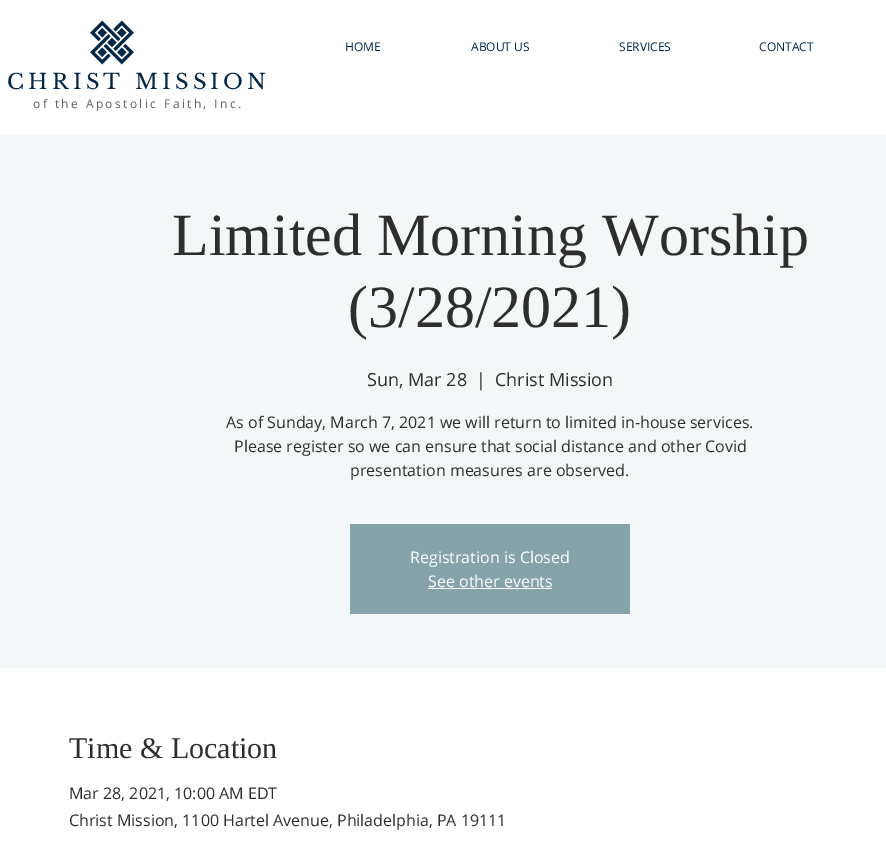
%!PS
<< /PageSize [886 865] >> setpagedevice
/rgb { 3 { 255 div 3 1 roll } repeat setrgbcolor } def
/font { [ exch dup neg 0 0 3 -1 roll 0 0 ] selectfont } def
/text { moveto show } def
/picture { 5 dict begin { /h /w /y /x /name } { exch def } forall
  gsave x y translate w h scale
  w h 8 [w 0 0 h 0 0] name (r) file false 3 colorimage grestore end } def
0 865 translate 1 -1 scale
4 setmiterlimit
255 255 255 rgb
0 0 886 865 rectfill
(img_01.rgb) 90 20 44 45 picture
243 247 247 rgb
0 134 886 534 rectfill
132 164 169 rgb
350 524 280 90 rectfill
255 255 255 rgb
428 588 124 1 rectfill
/OpenSans-Regular 12 font
1 38 70 rgb
(HOME) 345 51 text
(ABOUT US) 471 51 text
(SERVICES) 619 51 text
(CONTACT) 759 51 text
/LibreBaskerville-Regular 21 font
7 89 moveto 4.25 0 (CHRIST MISSION) ashow
/OpenSans-Regular 12 font
96 94 94 rgb
33 108 moveto 2.4 0 (of the Apostolic Faith, Inc.) ashow
/LiberationSerif-Regular 60 font
47 46 46 rgb
(Limited Morning Worship) 172 255 text
(\(3/28/2021\)) 348 327 text
/OpenSans-Regular 18 font
(Sun, Mar 28) 367 386 text
(|) 476 386 text
(Christ Mission) 495 386 text
/OpenSans-Regular 16 font
(As of Sunday, March 7, 2021 we will return to limited in-house services.) 226 428 text
(Please register so we can ensure that social distance and other Covid) 234 452 text
(presentation measures are observed.) 350 476 text
255 255 255 rgb
(Registration is Closed) 410 563 text
(See other events) 428 587 text
/LiberationSerif-Regular 30 font
47 46 46 rgb
(Time & Location) 69 758 text
/OpenSans-Regular 16 font
(Mar 28, 2021, 10:00 AM EDT) 69 799 text
(Christ Mission, 1100 Hartel Avenue, Philadelphia, PA 19111) 69 826 text
showpage
